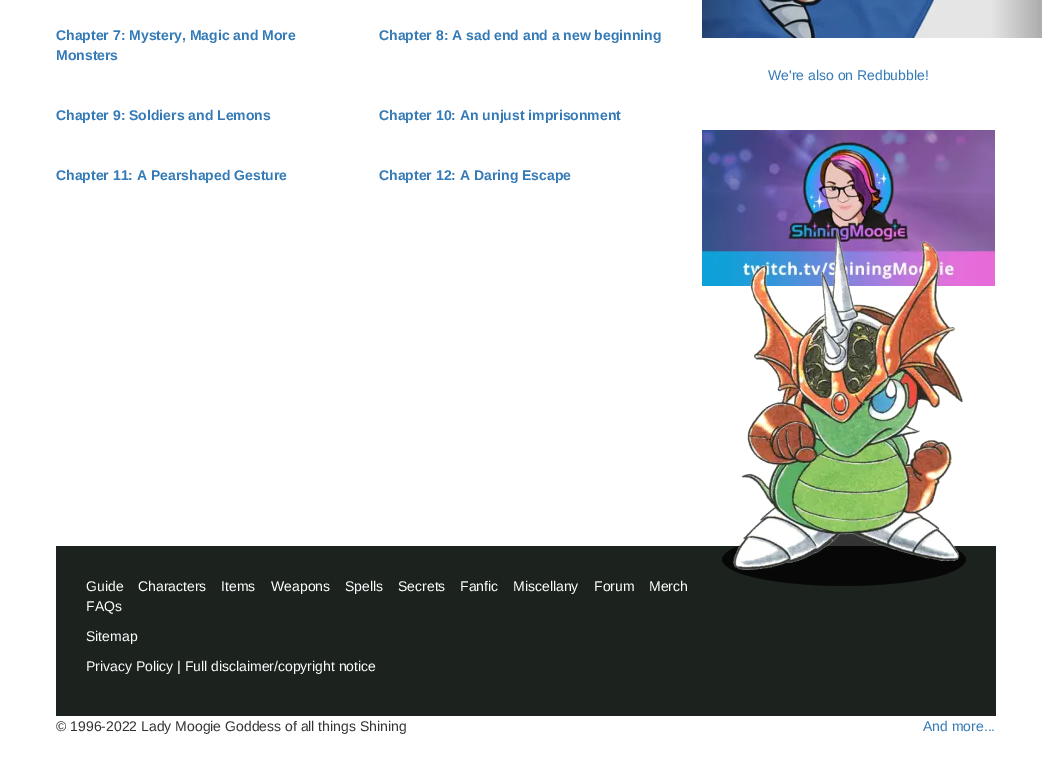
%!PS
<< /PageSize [1051 776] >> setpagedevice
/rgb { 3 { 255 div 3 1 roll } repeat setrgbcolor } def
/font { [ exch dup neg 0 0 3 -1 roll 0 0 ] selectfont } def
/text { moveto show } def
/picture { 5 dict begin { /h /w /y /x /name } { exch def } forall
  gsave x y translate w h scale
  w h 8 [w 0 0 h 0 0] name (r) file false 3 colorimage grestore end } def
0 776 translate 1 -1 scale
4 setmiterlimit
255 255 255 rgb
0 0 1051 776 rectfill
(img_01.rgb) 702 0 340 38 picture
(img_02.rgb) 702 130 293 156 picture
28 35 30 rgb
56 546 940 170 rectfill
(img_03.rgb) 722 230 244 356 picture
/LiberationSans-Bold 14 font
51 122 183 rgb
(Chapter 7: Mystery, Magic and More) 56 40 text
(Monsters) 56 60 text
(Chapter 8: A sad end and a new beginning) 379 40 text
(Chapter 9: Soldiers and Lemons) 56 120 text
(Chapter 10: An unjust imprisonment) 379 120 text
(Chapter 11: A Pearshaped Gesture) 56 180 text
(Chapter 12: A Daring Escape) 379 180 text
/LiberationSans-Regular 14 font
(We're also on Redbubble!) 768 80 text
255 255 255 rgb
(Guide) 86 591 text
(Characters) 138 591 text
(Items) 221 591 text
(Weapons) 271 591 text
(Spells) 345 591 text
(Secrets) 398 591 text
(Fanfic) 460 591 text
(Miscellany) 513 591 text
(Forum) 594 591 text
(Merch) 649 591 text
(FAQs) 86 611 text
(Sitemap) 86 641 text
(Privacy Policy | Full disclaimer/copyright notice) 86 671 text
51 51 51 rgb
(© 1996-2022 Lady Moogie Goddess of all things Shining) 56 731 text
51 122 183 rgb
(And more...) 923 731 text
showpage
